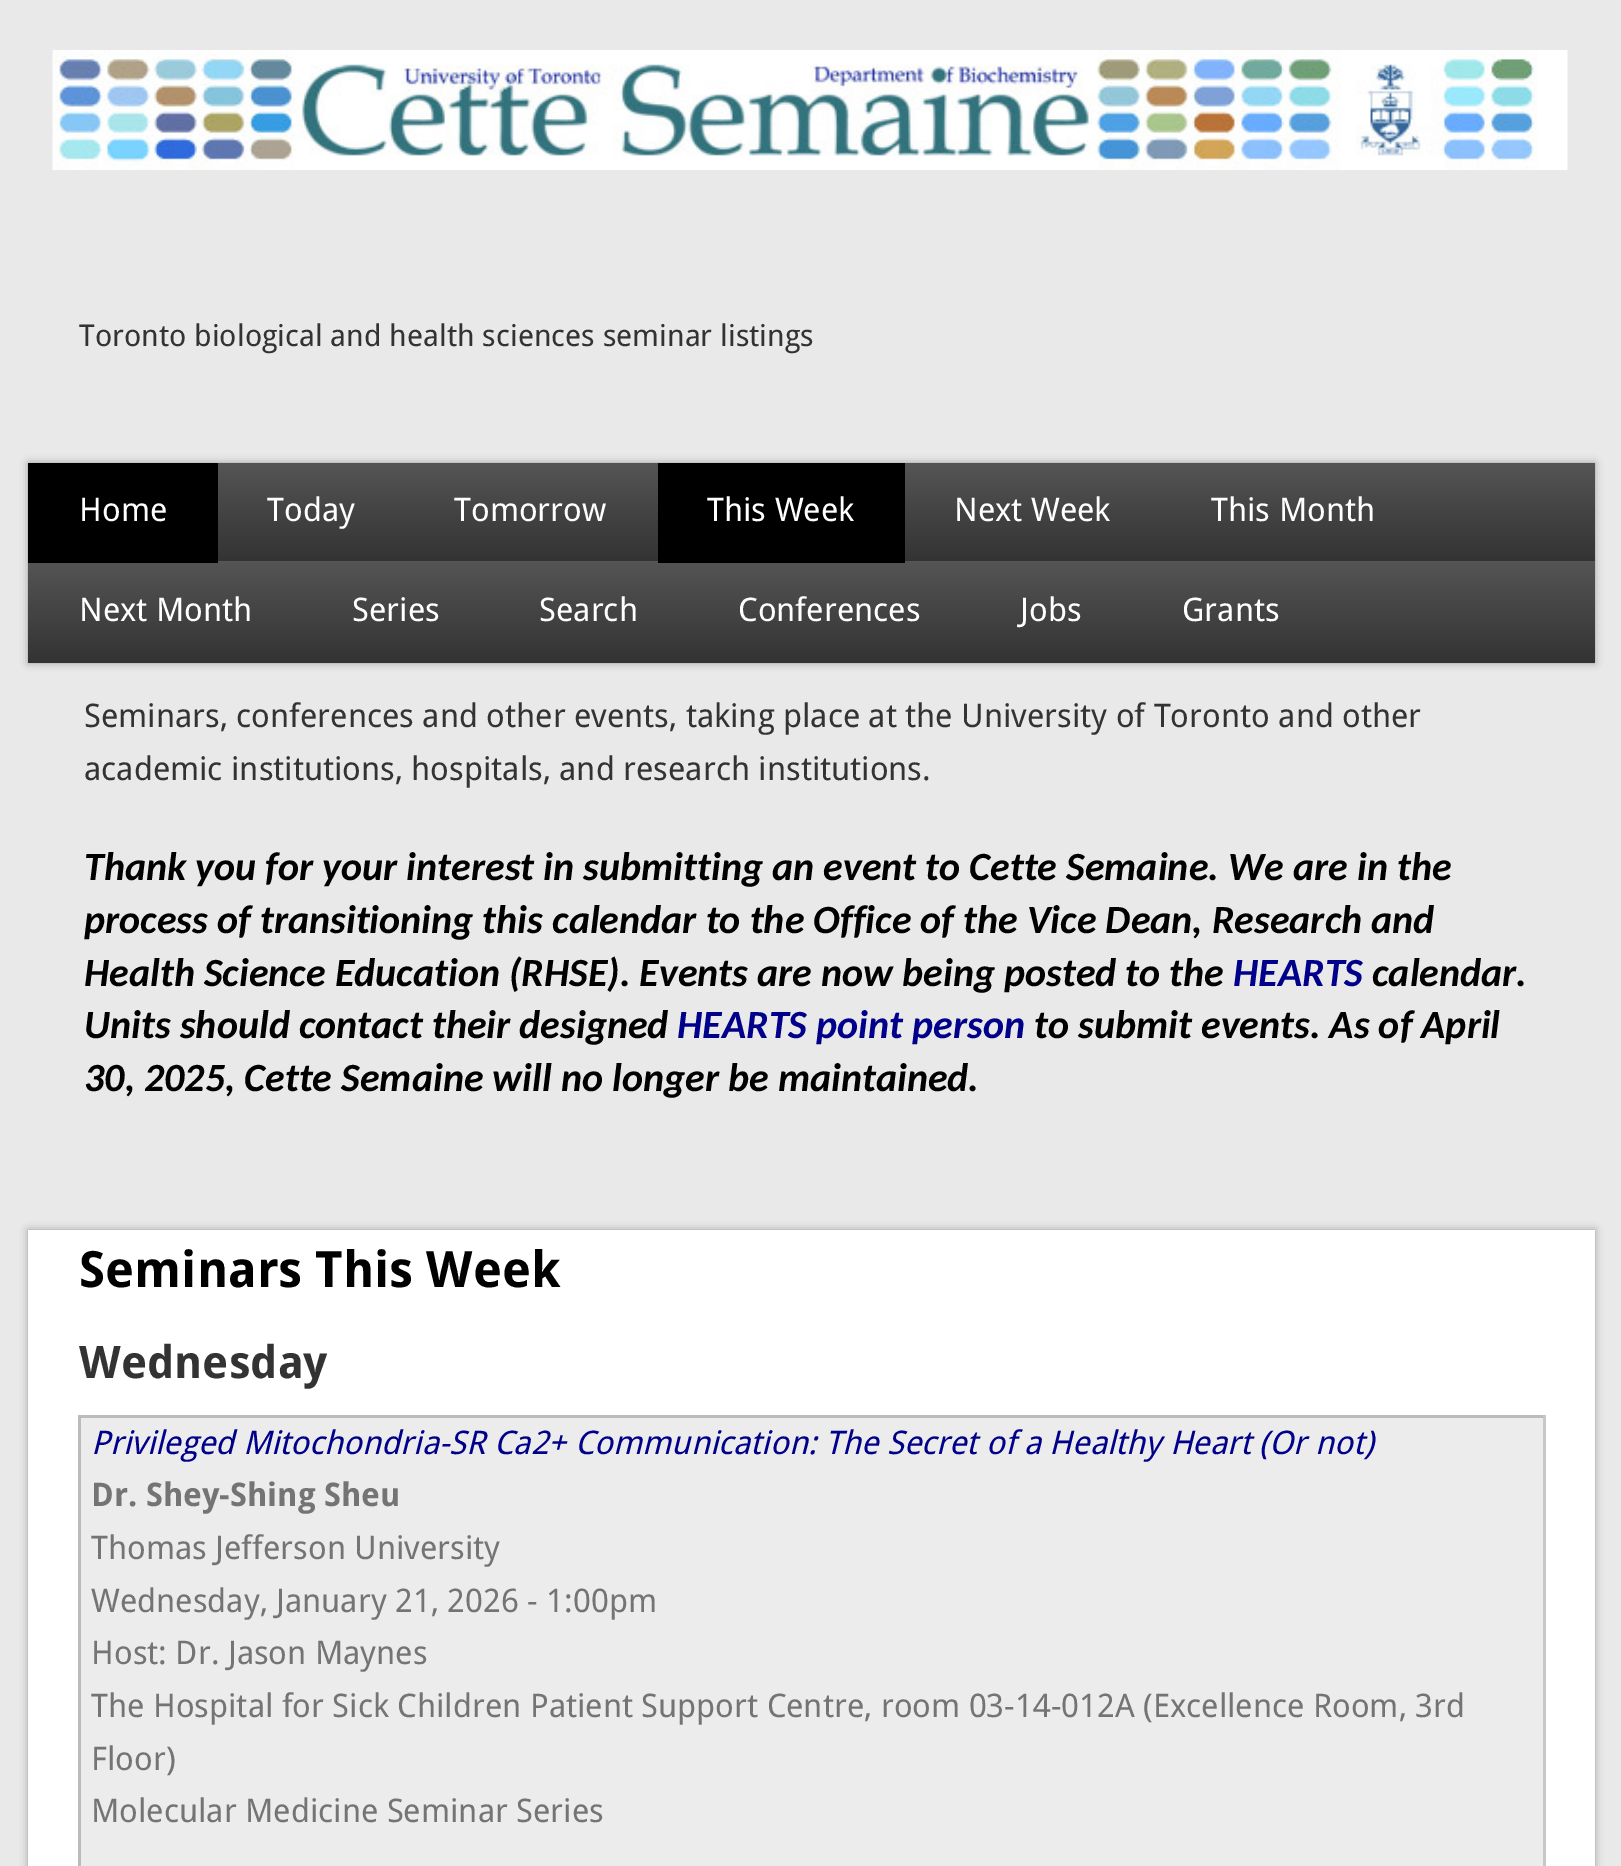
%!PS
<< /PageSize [1621 1866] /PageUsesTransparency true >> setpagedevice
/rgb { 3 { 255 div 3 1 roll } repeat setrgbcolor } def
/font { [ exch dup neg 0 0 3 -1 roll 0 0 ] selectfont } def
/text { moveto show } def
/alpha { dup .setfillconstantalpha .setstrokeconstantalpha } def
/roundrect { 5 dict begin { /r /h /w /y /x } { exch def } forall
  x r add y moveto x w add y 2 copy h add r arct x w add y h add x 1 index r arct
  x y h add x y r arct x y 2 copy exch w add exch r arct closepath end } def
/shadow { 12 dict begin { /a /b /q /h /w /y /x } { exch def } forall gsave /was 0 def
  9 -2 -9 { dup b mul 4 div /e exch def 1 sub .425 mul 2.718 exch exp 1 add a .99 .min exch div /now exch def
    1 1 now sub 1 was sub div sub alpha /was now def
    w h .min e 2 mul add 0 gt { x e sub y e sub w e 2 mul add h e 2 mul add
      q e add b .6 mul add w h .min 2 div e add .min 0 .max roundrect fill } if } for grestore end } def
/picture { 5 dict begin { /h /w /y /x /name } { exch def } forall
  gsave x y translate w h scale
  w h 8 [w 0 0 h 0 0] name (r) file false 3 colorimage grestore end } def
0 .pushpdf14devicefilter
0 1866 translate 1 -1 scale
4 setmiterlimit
233 233 233 rgb
0 0 1621 1866 rectfill
(img_01.rgb) 52 50 1516 120 picture
153 153 153 rgb
28 463 1567 200 0 4 1 shadow
gsave 28 463 moveto 1567 0 rlineto 0 200 rlineto -1567 0 rlineto closepath clip newpath
<< /ShadingType 2 /ColorSpace /DeviceRGB /Coords [811 462 811 763] /Extend [true true] /Function << /FunctionType 3 /Domain [0 1] /Functions [<< /FunctionType 2 /Domain [0 1] /C0 [0.333 0.333 0.333] /C1 [0.2 0.2 0.2] /N 1 >> << /FunctionType 2 /Domain [0 1] /C0 [0.333 0.333 0.333] /C1 [0.2 0.2 0.2] /N 1 >> << /FunctionType 2 /Domain [0 1] /C0 [0.333 0.333 0.333] /C1 [0.2 0.2 0.2] /N 1 >>] /Bounds [0.33 0.67] /Encode [0 1 0 1 0 1] >> >> shfill grestore
0 0 0 rgb
28 463 190 100 rectfill
658 463 247 100 rectfill
153 153 153 rgb
28 1230 1567 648 0 4 1 shadow
255 255 255 rgb
28 1230 1567 636 rectfill
236 236 236 rgb
81 1418 1462 448 rectfill
187 187 187 rgb
78 1415 1467 3 rectfill
78 1415 3 451 rectfill
200 199 199 rgb
1543 1415 3 451 rectfill
/DroidSans-Regular 30 font
51 51 51 rgb
(Toronto biological and health sciences seminar listings) 79 346 text
/DroidSans-Regular 32.5 font
255 255 255 rgb
(Home) 79 521 text
(Today) 267 521 text
(Tomorrow) 454 521 text
(This Week) 707 521 text
(Next Week) 954 521 text
(This Month) 1211 521 text
(Next Month) 79 621 text
(Series) 352 621 text
(Search) 539 621 text
(Conferences) 738 621 text
(Jobs) 1020 621 text
(Grants) 1182 621 text
51 51 51 rgb
(Seminars, conferences and other events, taking place at the University of Toronto and other) 84 727 text
(academic institutions, hospitals, and research institutions.) 84 780 text
/Carlito-BoldItalic 40 font
0 0 0 rgb
(Thank you for your interest in submitting an event to Cette Semaine. We are in the) 84 880 text
(process of transitioning this calendar to the Office of the Vice Dean, Research and) 84 933 text
(Health Science Education \(RHSE\). Events are now being posted to the) 84 986 text
0 0 139 rgb
(HEARTS) 1233 986 text
0 0 0 rgb
(calendar.) 1372 986 text
(Units should contact their designed) 84 1038 text
0 0 139 rgb
(HEARTS point person) 677 1038 text
0 0 0 rgb
(to submit events. As of April) 1034 1038 text
(30, 2025, Cette Semaine will no longer be maintained.) 84 1091 text
/DroidSans-Bold 50 font
(Seminars This Week) 79 1287 text
/DroidSans-Bold 45 font
51 51 51 rgb
(Wednesday) 79 1378 text
/DroidSans-Italic 32.5 font
0 0 139 rgb
(Privileged Mitochondria-SR Ca2+ Communication: The Secret of a Healthy Heart \(Or not\)) 91 1454 text
/DroidSans-Bold 32.5 font
116 116 116 rgb
(Dr. Shey-Shing Sheu) 91 1506 text
/DroidSans-Regular 32.5 font
(Thomas Jefferson University) 91 1559 text
(Wednesday, January 21, 2026 - 1:00pm) 91 1612 text
(Host: Dr. Jason Maynes) 91 1664 text
(The Hospital for Sick Children Patient Support Centre, room 03-14-012A \(Excellence Room, 3rd) 91 1717 text
(Floor\)) 91 1770 text
(Molecular Medicine Seminar Series) 91 1822 text
.poppdf14devicefilter showpage
